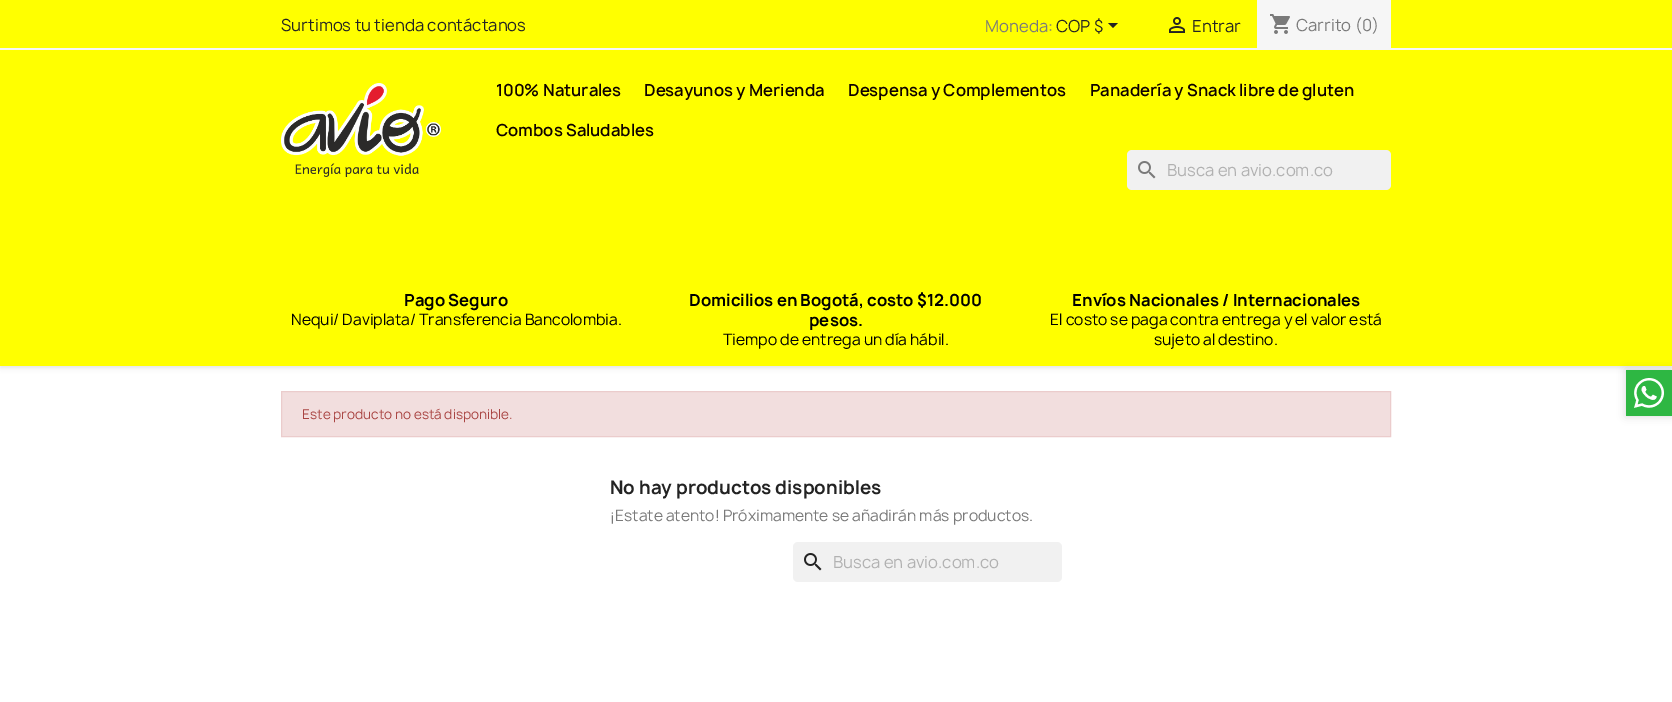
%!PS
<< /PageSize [1672 702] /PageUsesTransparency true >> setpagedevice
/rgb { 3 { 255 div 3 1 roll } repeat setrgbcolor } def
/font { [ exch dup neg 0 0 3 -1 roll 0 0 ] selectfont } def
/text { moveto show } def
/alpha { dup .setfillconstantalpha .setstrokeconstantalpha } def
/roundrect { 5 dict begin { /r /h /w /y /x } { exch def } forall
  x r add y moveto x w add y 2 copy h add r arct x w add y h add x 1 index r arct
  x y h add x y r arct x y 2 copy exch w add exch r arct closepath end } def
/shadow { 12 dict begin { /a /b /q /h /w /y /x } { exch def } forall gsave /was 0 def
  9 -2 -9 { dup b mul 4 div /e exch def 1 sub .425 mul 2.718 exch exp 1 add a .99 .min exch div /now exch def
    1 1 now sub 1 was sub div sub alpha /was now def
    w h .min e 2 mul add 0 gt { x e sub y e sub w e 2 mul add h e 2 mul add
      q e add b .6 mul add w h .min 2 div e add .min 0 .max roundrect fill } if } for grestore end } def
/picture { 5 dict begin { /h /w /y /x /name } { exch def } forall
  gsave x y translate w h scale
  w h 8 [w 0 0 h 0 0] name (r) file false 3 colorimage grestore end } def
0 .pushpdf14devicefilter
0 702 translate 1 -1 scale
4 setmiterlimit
255 255 255 rgb
0 0 1672 702 rectfill
0 0 0 rgb
0 2 1672 366 0 2.5 0.11 shadow
255 255 0 rgb
0 0 1672 366 rectfill
246 246 246 rgb
0 48 1672 2 rectfill
35 35 35 rgb
1108 23 moveto 10 0 rlineto -5 5 rlineto closepath fill
(img_01.rgb) 1169 17 16 16 picture
246 246 246 rgb
1257 0 134 48 rectfill
(img_02.rgb) 1270 14 20 20 picture
(img_03.rgb) 281 83 160 94 picture
241 241 241 rgb
1127 150 264 40 5 roundrect fill
(img_04.rgb) 1138 161 18 18 picture
242 222 222 rgb
281.5 391.5 moveto 1109 0 rlineto 0 45 rlineto -1109 0 rlineto closepath gsave fill grestore
235 204 204 rgb
stroke
0 0 0 rgb
1626 370 46 46 0 4.5 0.15 shadow
46 183 67 rgb
1626 370 46 46 rectfill
(img_05.rgb) 1634 378 30 30 picture
241 241 241 rgb
793 542 269 40 5 roundrect fill
(img_06.rgb) 804 553 18 18 picture
/Manrope-Regular 16 font
35 35 35 rgb
(Surtimos tu tienda contáctanos) 281 31 text
122 122 122 rgb
(Moneda:) 985 32 text
35 35 35 rgb
(COP $) 1056 32 text
(Entrar) 1192 32 text
122 122 122 rgb
(Carrito \(0\)) 1296 31 text
/Manrope-SemiBold 16 font
14 0 0 rgb
(100% Naturales) 496 96 text
(Desayunos y Merienda) 644 96 text
(Despensa y Complementos) 848 96 text
(Panadería y Snack libre de gluten) 1090 96 text
(Combos Saludables) 496 136 text
/Manrope-Regular 16 font
177 177 177 rgb
(Busca en avio.com.co) 1167 176 text
/Manrope-Bold 16 font
0 0 0 rgb
(Pago Seguro) 404 306 text
/Manrope-Regular 15 font
(Nequi/ Daviplata/ Transferencia Bancolombia.) 291 325 text
/Manrope-Bold 16 font
(Domicilios en Bogotá, costo $12.000) 689 306 text
(pesos.) 809 326 text
/Manrope-Regular 15 font
(Tiempo de entrega un día hábil.) 723 345 text
/Manrope-Bold 16 font
(Envíos Nacionales / Internacionales) 1072 306 text
/Manrope-Regular 15 font
(El costo se paga contra entrega y el valor está) 1050 325 text
(sujeto al destino.) 1154 345 text
/Manrope-Regular 13 font
169 68 66 rgb
(Este producto no está disponible.) 302 419 text
/Manrope-Bold 18 font
35 35 35 rgb
(No hay productos disponibles) 610 494 text
/Manrope-Regular 15 font
122 122 122 rgb
(¡Estate atento! Próximamente se añadirán más productos.) 610 521 text
/Manrope-Regular 16 font
177 177 177 rgb
(Busca en avio.com.co) 833 568 text
.poppdf14devicefilter showpage
